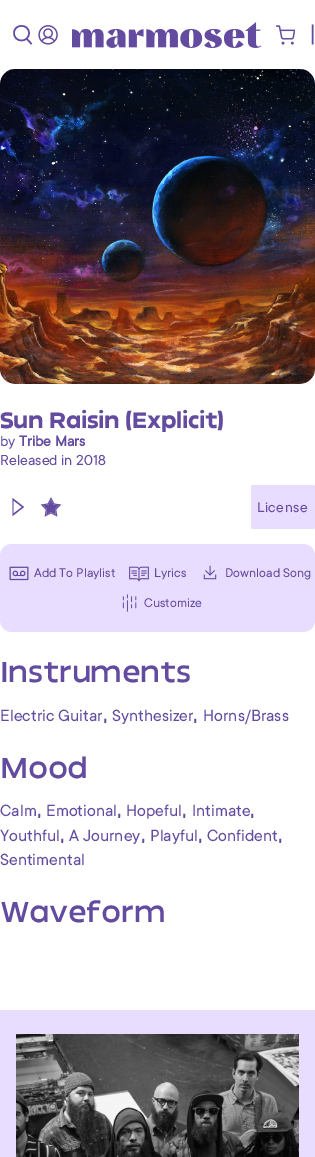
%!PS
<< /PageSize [315 1157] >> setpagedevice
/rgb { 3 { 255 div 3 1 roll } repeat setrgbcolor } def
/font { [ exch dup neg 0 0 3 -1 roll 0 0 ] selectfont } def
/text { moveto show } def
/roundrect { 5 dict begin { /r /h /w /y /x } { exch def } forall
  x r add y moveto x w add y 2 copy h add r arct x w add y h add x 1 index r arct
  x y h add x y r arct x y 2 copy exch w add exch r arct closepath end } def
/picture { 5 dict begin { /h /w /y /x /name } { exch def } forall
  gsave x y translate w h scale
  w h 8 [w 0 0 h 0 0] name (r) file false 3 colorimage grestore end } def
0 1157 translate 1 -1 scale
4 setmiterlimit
255 255 255 rgb
0 0 315 1157 rectfill
99 75 159 rgb
1.5 setlinewidth
26.5 38.5 moveto 5 5.5 rlineto 29 33 moveto 0 10 -15 10 -15 0 rcurveto 0 -9.5 15 -9.5 15 0 rcurveto closepath stroke
(img_01.rgb) 38 25 20 20 picture
(img_02.rgb) 72 22 190 26 picture
(img_03.rgb) 276 25 19 20 picture
312.5 24.5 moveto 0 20 rlineto stroke
(img_04.rgb) 0 69 315 315 picture
13.5 500.5 moveto 8.5 6.5 rlineto -8.5 6.5 rlineto closepath 12.5 516 moveto 11.5 -9 rlineto -11.5 -9 rlineto closepath fill
(img_05.rgb) 40 497 22 20 picture
233 221 255 rgb
251 485 64 44 2 roundrect fill
0 544 315 88 12 roundrect fill
(img_06.rgb) 9 566 20 15 picture
(img_07.rgb) 129 566 20 16 picture
(img_08.rgb) 203 565 14 15 picture
(img_09.rgb) 122 594 15 18 picture
0 1010 315 147 rectfill
(img_10.rgb) 16 1034 283 123 picture
/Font-Bold 20 font
99 75 159 rgb
0 428 moveto -0.4 0 (Sun Raisin \(Explicit\)) ashow
/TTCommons-Regular 16 font
(by) 0 446 text
/TTCommons-Bold 16 font
(Tribe Mars) 19 446 text
/TTCommons-Regular 16 font
(Released in 2018) 0 465 text
/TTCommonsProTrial-Medium 14 font
257 512 moveto 0.5 0 (License) ashow
/TTCommons-Regular 14 font
(Add To Playlist) 34 577 text
(Lyrics) 154 577 text
(Download Song) 225 577 text
(Customize) 144 607 text
/Font-Regular 26 font
0 682 moveto -0.5 0 (Instruments) ashow
/TTCommons-Regular 18 font
(Electric Guitar) 0 721 text
/Font-Regular 16 font
(,) 103 721 text
/TTCommons-Regular 18 font
(Synthesizer) 112 721 text
/Font-Regular 16 font
(,) 193 721 text
/TTCommons-Regular 18 font
(Horns/Brass) 203 721 text
/Font-Regular 26 font
0 778 moveto -0.5 0 (Mood) ashow
/TTCommons-Regular 18 font
(Calm) 0 816 text
/Font-Regular 16 font
(,) 37 816 text
/TTCommons-Regular 18 font
(Emotional) 46 816 text
/Font-Regular 16 font
(,) 117 816 text
/TTCommons-Regular 18 font
(Hopeful) 126 816 text
/Font-Regular 16 font
(,) 182 816 text
/TTCommons-Regular 18 font
(Intimate) 192 816 text
/Font-Regular 16 font
(,) 250 816 text
/TTCommons-Regular 18 font
(Youthful) 0 841 text
/Font-Regular 16 font
(,) 60 841 text
/TTCommons-Regular 18 font
(A Journey) 69 841 text
/Font-Regular 16 font
(,) 141 841 text
/TTCommons-Regular 18 font
(Playful) 150 841 text
/Font-Regular 16 font
(,) 198 841 text
/TTCommons-Regular 18 font
(Confident) 207 841 text
/Font-Regular 16 font
(,) 278 841 text
/TTCommons-Regular 18 font
(Sentimental) 0 865 text
/Font-Regular 26 font
0 922 moveto -0.5 0 (Waveform) ashow
showpage
